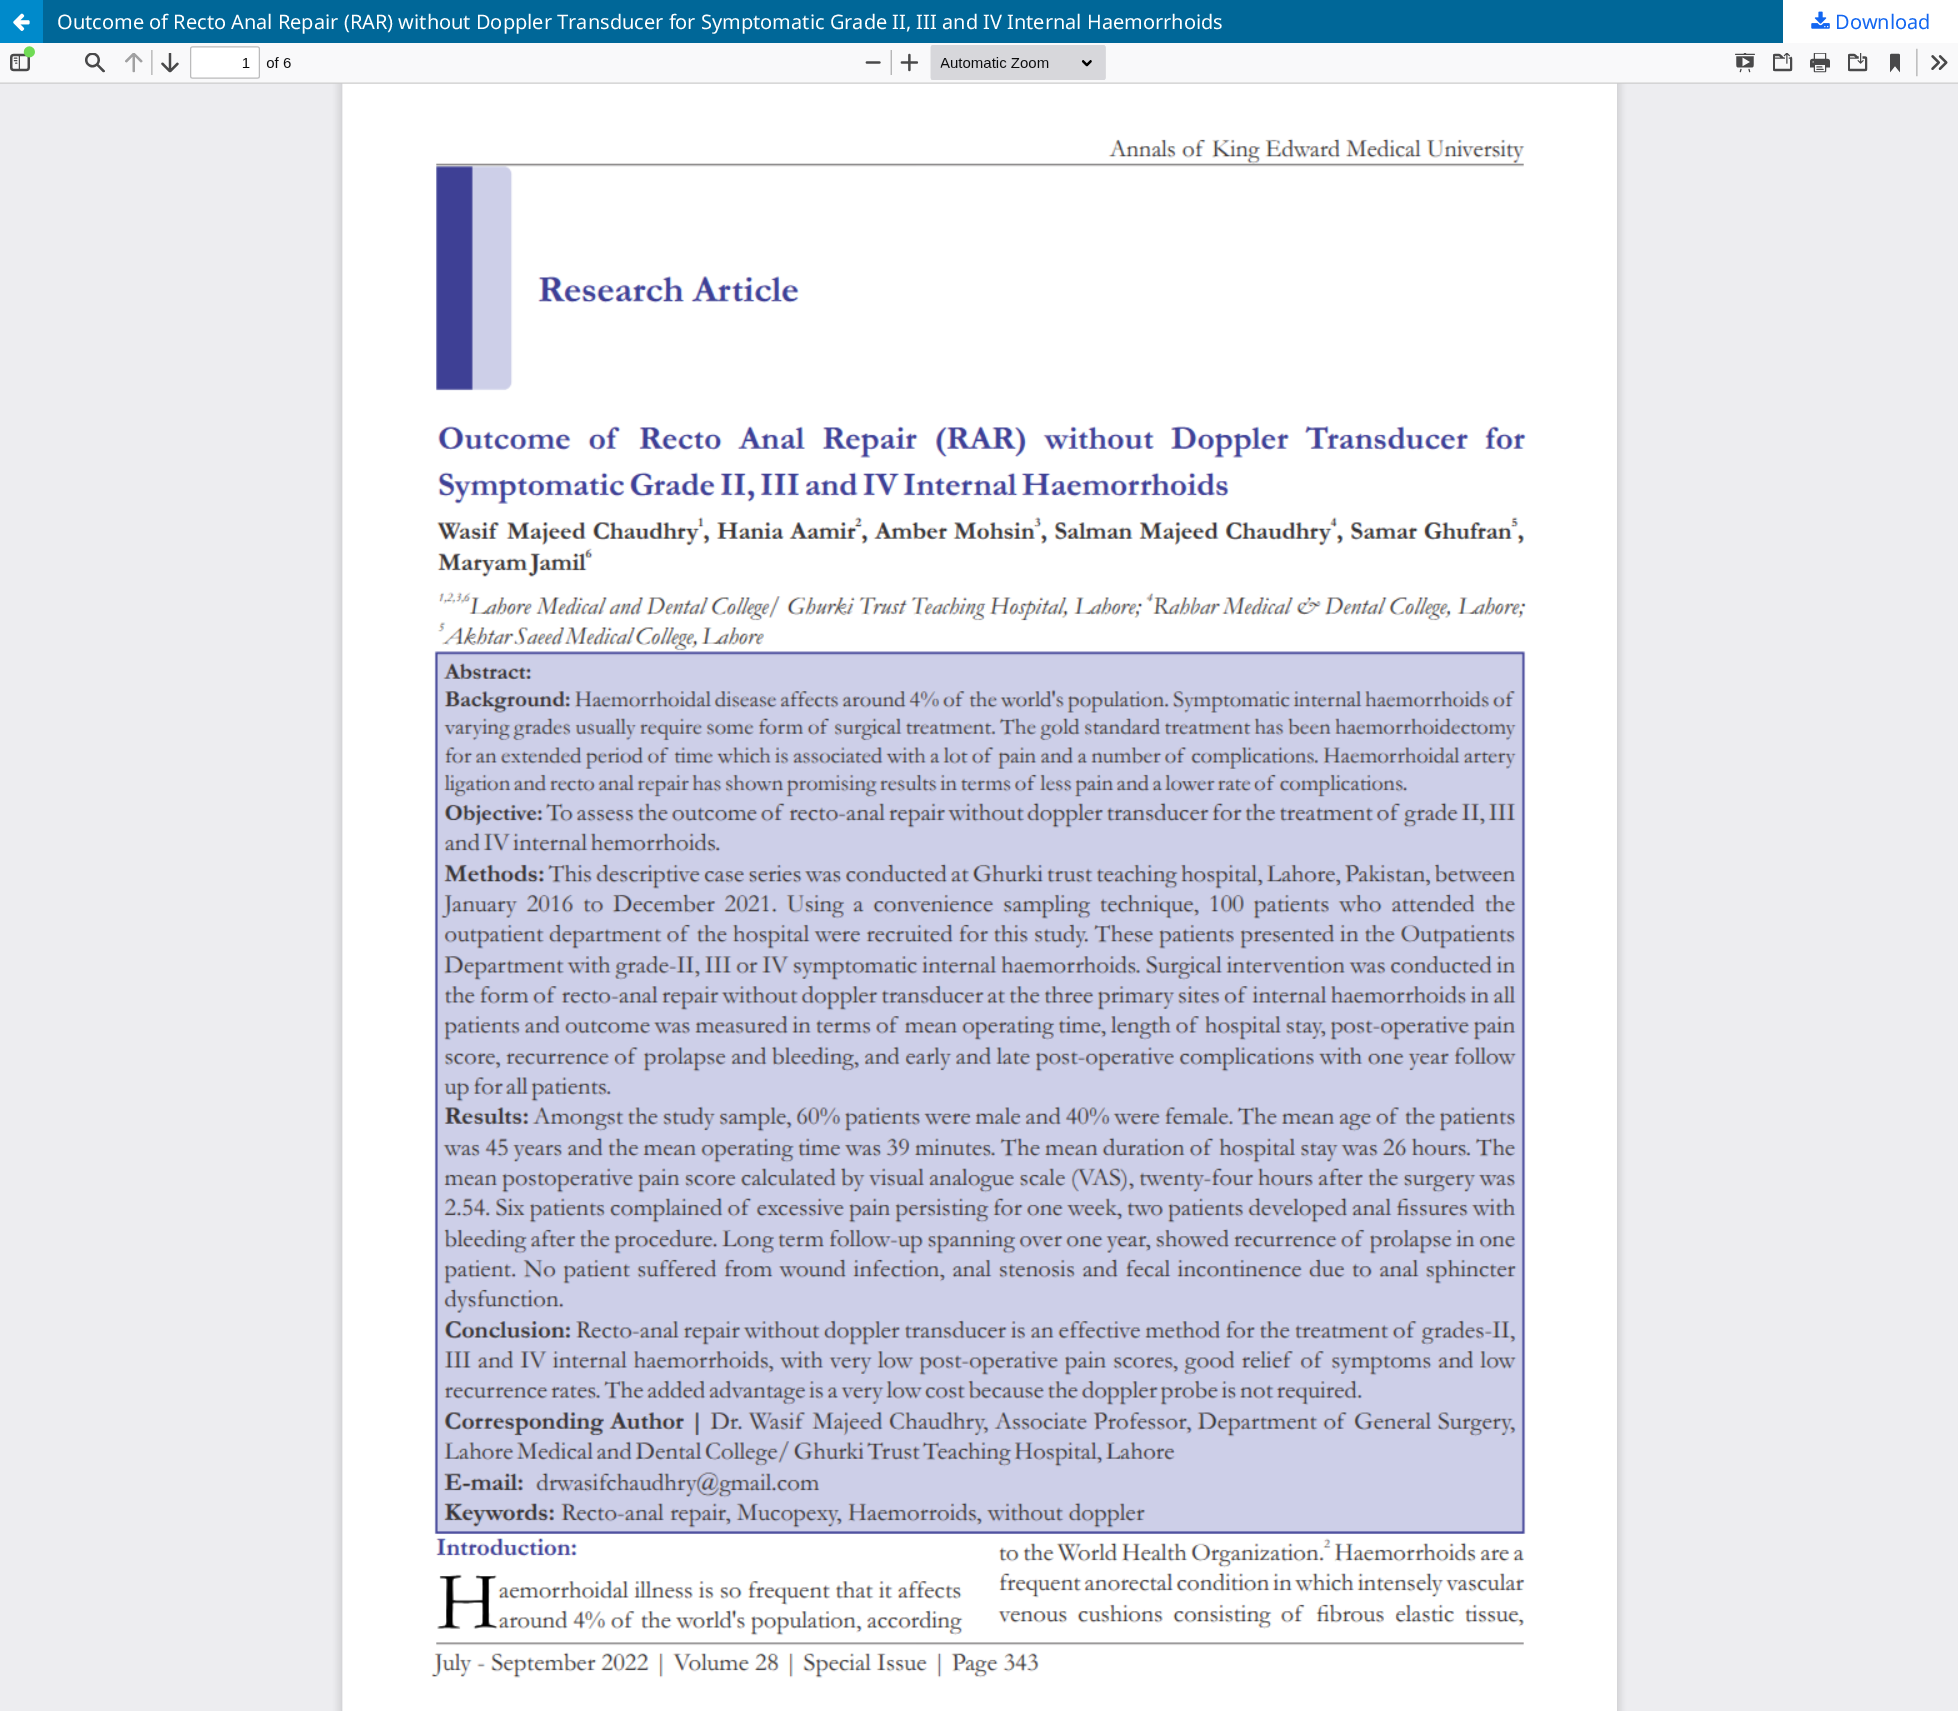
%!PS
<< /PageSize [1958 1711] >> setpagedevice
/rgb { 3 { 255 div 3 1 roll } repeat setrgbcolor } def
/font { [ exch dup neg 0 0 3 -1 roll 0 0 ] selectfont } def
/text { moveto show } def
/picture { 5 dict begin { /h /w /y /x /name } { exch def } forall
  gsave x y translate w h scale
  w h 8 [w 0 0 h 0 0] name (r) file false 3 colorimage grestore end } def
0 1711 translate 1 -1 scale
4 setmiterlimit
255 255 255 rgb
0 0 1958 1711 rectfill
0 103 152 rgb
43 0 1740 43 rectfill
0 138 203 rgb
0 0 43 43 rectfill
(img_01.rgb) 13 13 17 18 picture
(img_02.rgb) 1811 11 19 18 picture
(img_03.rgb) 0 43 1958 1668 picture
/NotoSans-Regular 20 font
255 255 255 rgb
(Outcome of Recto Anal Repair \(RAR\) without Doppler Transducer for Symptomatic Grade II, III and IV Internal Haemorrhoids) 57 29 text
18 102 241 rgb
(Download) 1835 29 text
showpage
